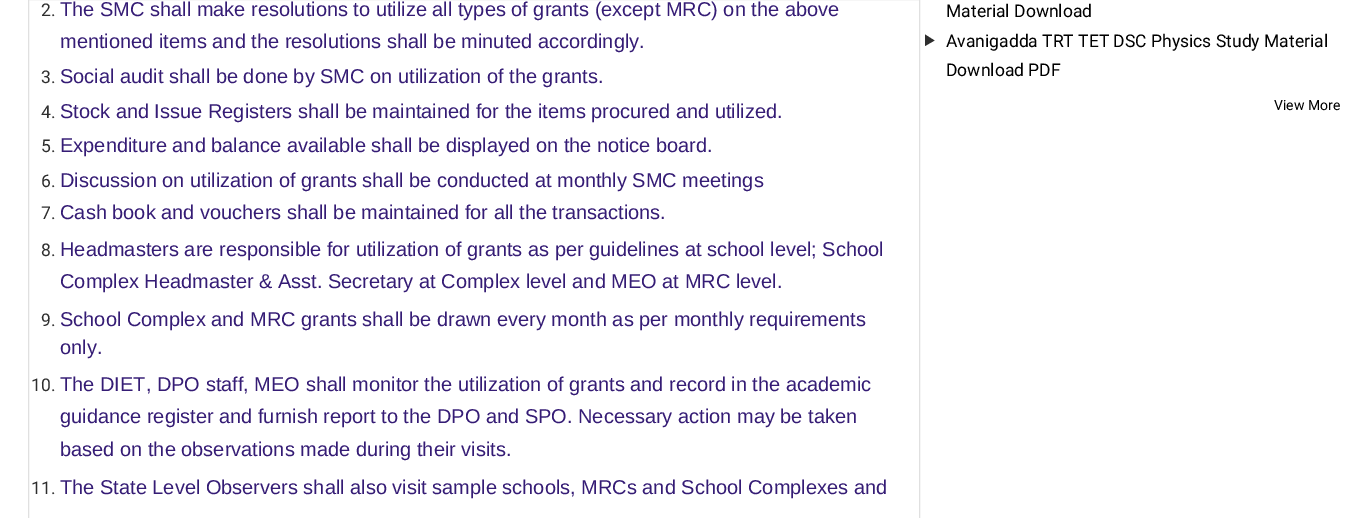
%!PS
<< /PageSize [1367 518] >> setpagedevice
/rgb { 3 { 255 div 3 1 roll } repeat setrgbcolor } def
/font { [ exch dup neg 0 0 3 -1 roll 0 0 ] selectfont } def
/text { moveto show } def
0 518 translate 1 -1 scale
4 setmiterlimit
255 255 255 rgb
0 0 1367 518 rectfill
224 224 224 rgb
28.5 -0.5 891 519 rectstroke
46 46 46 rgb
925 34.5 moveto 9.5 6 rlineto -9.5 5.5 rlineto closepath fill
/Roboto-Regular 17.5 font
(2.) 41 16 text
/LiberationSans-Regular 20 font
53 28 117 rgb
(The SMC shall make resolutions to utilize all types of grants \(except MRC\) on the above) 60 16 text
(mentioned items and the resolutions shall be minuted accordingly.) 60 48 text
/Roboto-Regular 17.5 font
46 46 46 rgb
(3.) 41 83 text
/LiberationSans-Regular 20 font
53 28 117 rgb
(Social audit shall be done by SMC on utilization of the grants.) 60 83 text
/Roboto-Regular 17.5 font
46 46 46 rgb
(4.) 41 118 text
/LiberationSans-Regular 20 font
53 28 117 rgb
(Stock and Issue Registers shall be maintained for the items procured and utilized.) 60 118 text
/Roboto-Regular 17.5 font
46 46 46 rgb
(5.) 41 152 text
/LiberationSans-Regular 20 font
53 28 117 rgb
(Expenditure and balance available shall be displayed on the notice board.) 60 152 text
/Roboto-Regular 17.5 font
46 46 46 rgb
(6.) 41 187 text
/LiberationSans-Regular 20 font
53 28 117 rgb
(Discussion on utilization of grants shall be conducted at monthly SMC meetings) 60 187 text
/Roboto-Regular 17.5 font
46 46 46 rgb
(7.) 41 219 text
/LiberationSans-Regular 20 font
53 28 117 rgb
(Cash book and vouchers shall be maintained for all the transactions.) 60 219 text
/Roboto-Regular 17.5 font
46 46 46 rgb
(8.) 41 256 text
/LiberationSans-Regular 20 font
53 28 117 rgb
(Headmasters are responsible for utilization of grants as per guidelines at school level; School) 60 256 text
(Complex Headmaster & Asst. Secretary at Complex level and MEO at MRC level.) 60 288 text
/Roboto-Regular 17.5 font
46 46 46 rgb
(9.) 41 326 text
/LiberationSans-Regular 20 font
53 28 117 rgb
(School Complex and MRC grants shall be drawn every month as per monthly requirements) 60 326 text
(only.) 60 354 text
/Roboto-Regular 17.5 font
46 46 46 rgb
(10.) 31 391 text
/LiberationSans-Regular 20 font
53 28 117 rgb
(The DIET, DPO staff, MEO shall monitor the utilization of grants and record in the academic) 60 391 text
(guidance register and furnish report to the DPO and SPO. Necessary action may be taken) 60 423 text
(based on the observations made during their visits.) 60 456 text
/Roboto-Regular 17.5 font
46 46 46 rgb
(11.) 31 494 text
/LiberationSans-Regular 20 font
53 28 117 rgb
(The State Level Observers shall also visit sample schools, MRCs and School Complexes and) 60 494 text
/Roboto-Regular 17.5 font
0 0 0 rgb
(Material Download) 946 17 text
(Avanigadda TRT TET DSC Physics Study Material) 946 47 text
(Download PDF) 946 76 text
/Roboto-Regular 14 font
(View More) 1274 110 text
showpage
